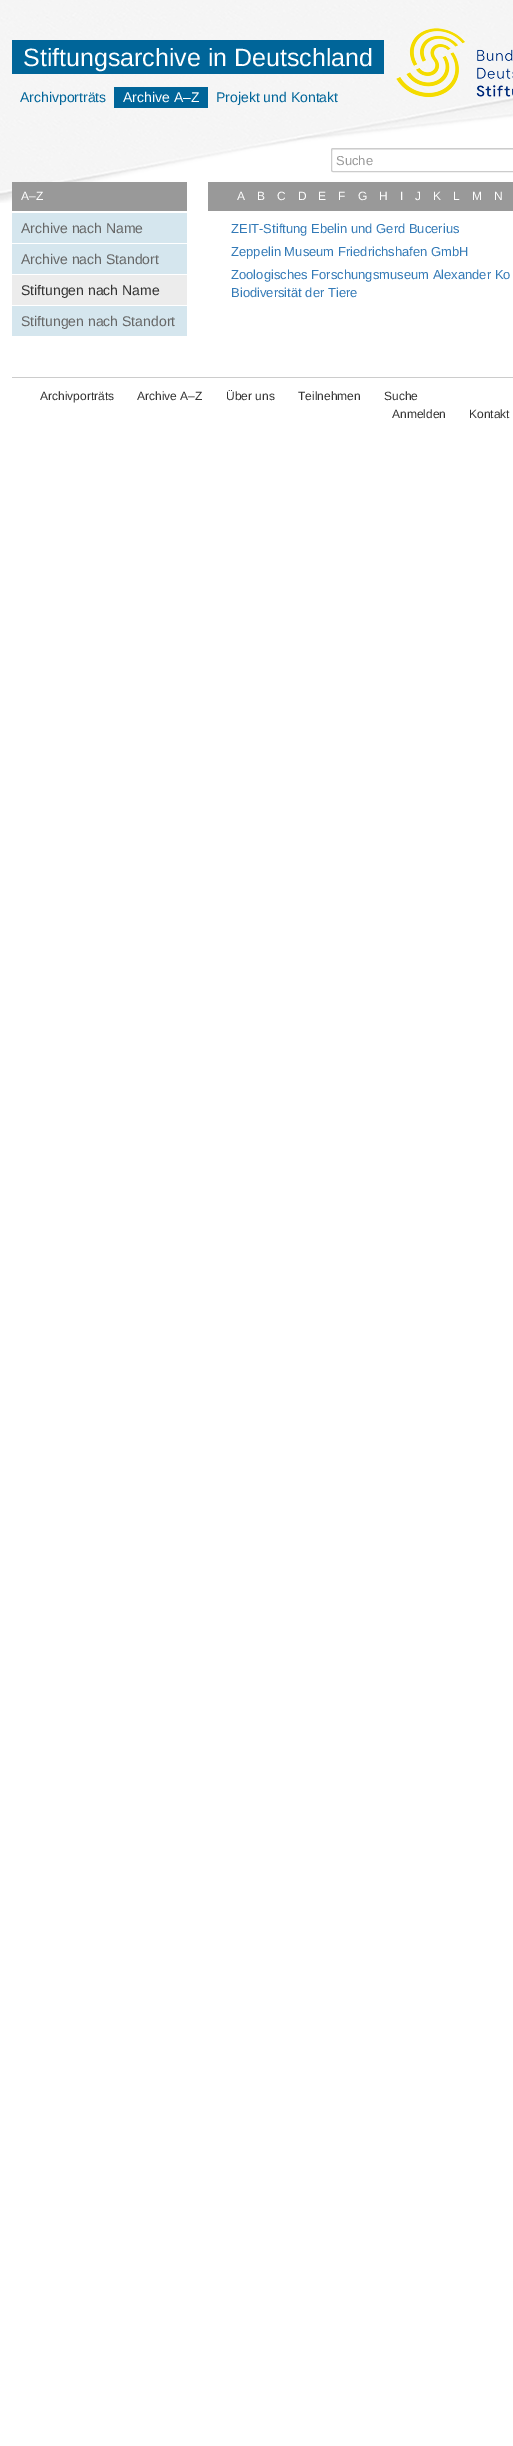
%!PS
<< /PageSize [513 2446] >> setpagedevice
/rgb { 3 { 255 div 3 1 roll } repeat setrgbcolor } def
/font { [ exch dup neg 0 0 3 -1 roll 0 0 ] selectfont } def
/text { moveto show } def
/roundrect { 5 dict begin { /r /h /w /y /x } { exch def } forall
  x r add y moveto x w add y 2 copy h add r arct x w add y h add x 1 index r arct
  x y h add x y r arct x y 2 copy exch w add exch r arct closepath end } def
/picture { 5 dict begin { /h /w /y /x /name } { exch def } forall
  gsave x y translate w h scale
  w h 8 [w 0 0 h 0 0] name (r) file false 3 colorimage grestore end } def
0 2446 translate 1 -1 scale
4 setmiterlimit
255 255 255 rgb
0 0 513 2446 rectfill
(img_01.rgb) 0 0 513 203 picture
0 101 153 rgb
12 40 372 34 rectfill
(img_02.rgb) 396 28 117 70 picture
114 87 94 21 rectfill
236 236 236 rgb
333 150 moveto 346 0 rlineto 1 1 rlineto 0 -1 rlineto -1 -1 rlineto -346 0 rlineto -1 0 -1 2 -1 2 rcurveto closepath fill
204 204 204 rgb
331.5 148.5 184 23 1.5 roundrect stroke
153 153 153 rgb
12 182 175 29 rectfill
213 230 238 rgb
12 213 175 30 rectfill
12 244 175 30 rectfill
236 236 236 rgb
12 275 175 30 rectfill
213 230 238 rgb
12 306 175 30 rectfill
153 153 153 rgb
208 182 305 29 rectfill
204 204 204 rgb
12 377 501 1 rectfill
/LiberationSans-Regular 25 font
255 255 255 rgb
(Stiftungsarchive in Deutschland) 23 66 text
/LiberationSans-Regular 14 font
0 101 153 rgb
(Archivporträts) 20 102 text
255 255 255 rgb
(Archive A–Z) 123 102 text
0 101 153 rgb
(Projekt und Kontakt) 216 102 text
/LiberationSans-Regular 13 font
153 153 153 rgb
(Suche) 336 165 text
/LiberationSans-Regular 12 font
255 255 255 rgb
(A–Z) 21 200 text
/LiberationSans-Regular 14 font
102 102 102 rgb
(Archive nach Name) 21 233 text
(Archive nach Standort) 21 264 text
51 51 51 rgb
(Stiftungen nach Name) 21 295 text
102 102 102 rgb
(Stiftungen nach Standort) 21 326 text
/LiberationSans-Regular 12 font
255 255 255 rgb
(A) 237 200 text
(B) 257 200 text
(C) 277 200 text
(D) 298 200 text
(E) 318 200 text
(F) 338 200 text
(G) 358 200 text
(H) 379 200 text
(I) 400 200 text
(J) 415 200 text
(K) 433 200 text
(L) 453 200 text
(M) 472 200 text
(N) 494 200 text
/LiberationSans-Regular 13 font
51 122 183 rgb
(ZEIT-Stiftung Ebelin und Gerd Bucerius) 231 233 text
(Zeppelin Museum Friedrichshafen GmbH) 231 256 text
(Zoologisches Forschungsmuseum Alexander Ko) 231 279 text
(Biodiversität der Tiere) 231 297 text
/LiberationSans-Regular 12 font
51 51 51 rgb
(Archivporträts) 40 400 text
(Archive A–Z) 137 400 text
(Über uns) 226 400 text
(Teilnehmen) 298 400 text
(Suche) 384 400 text
(Anmelden) 392 418 text
(Kontakt) 469 418 text
showpage
